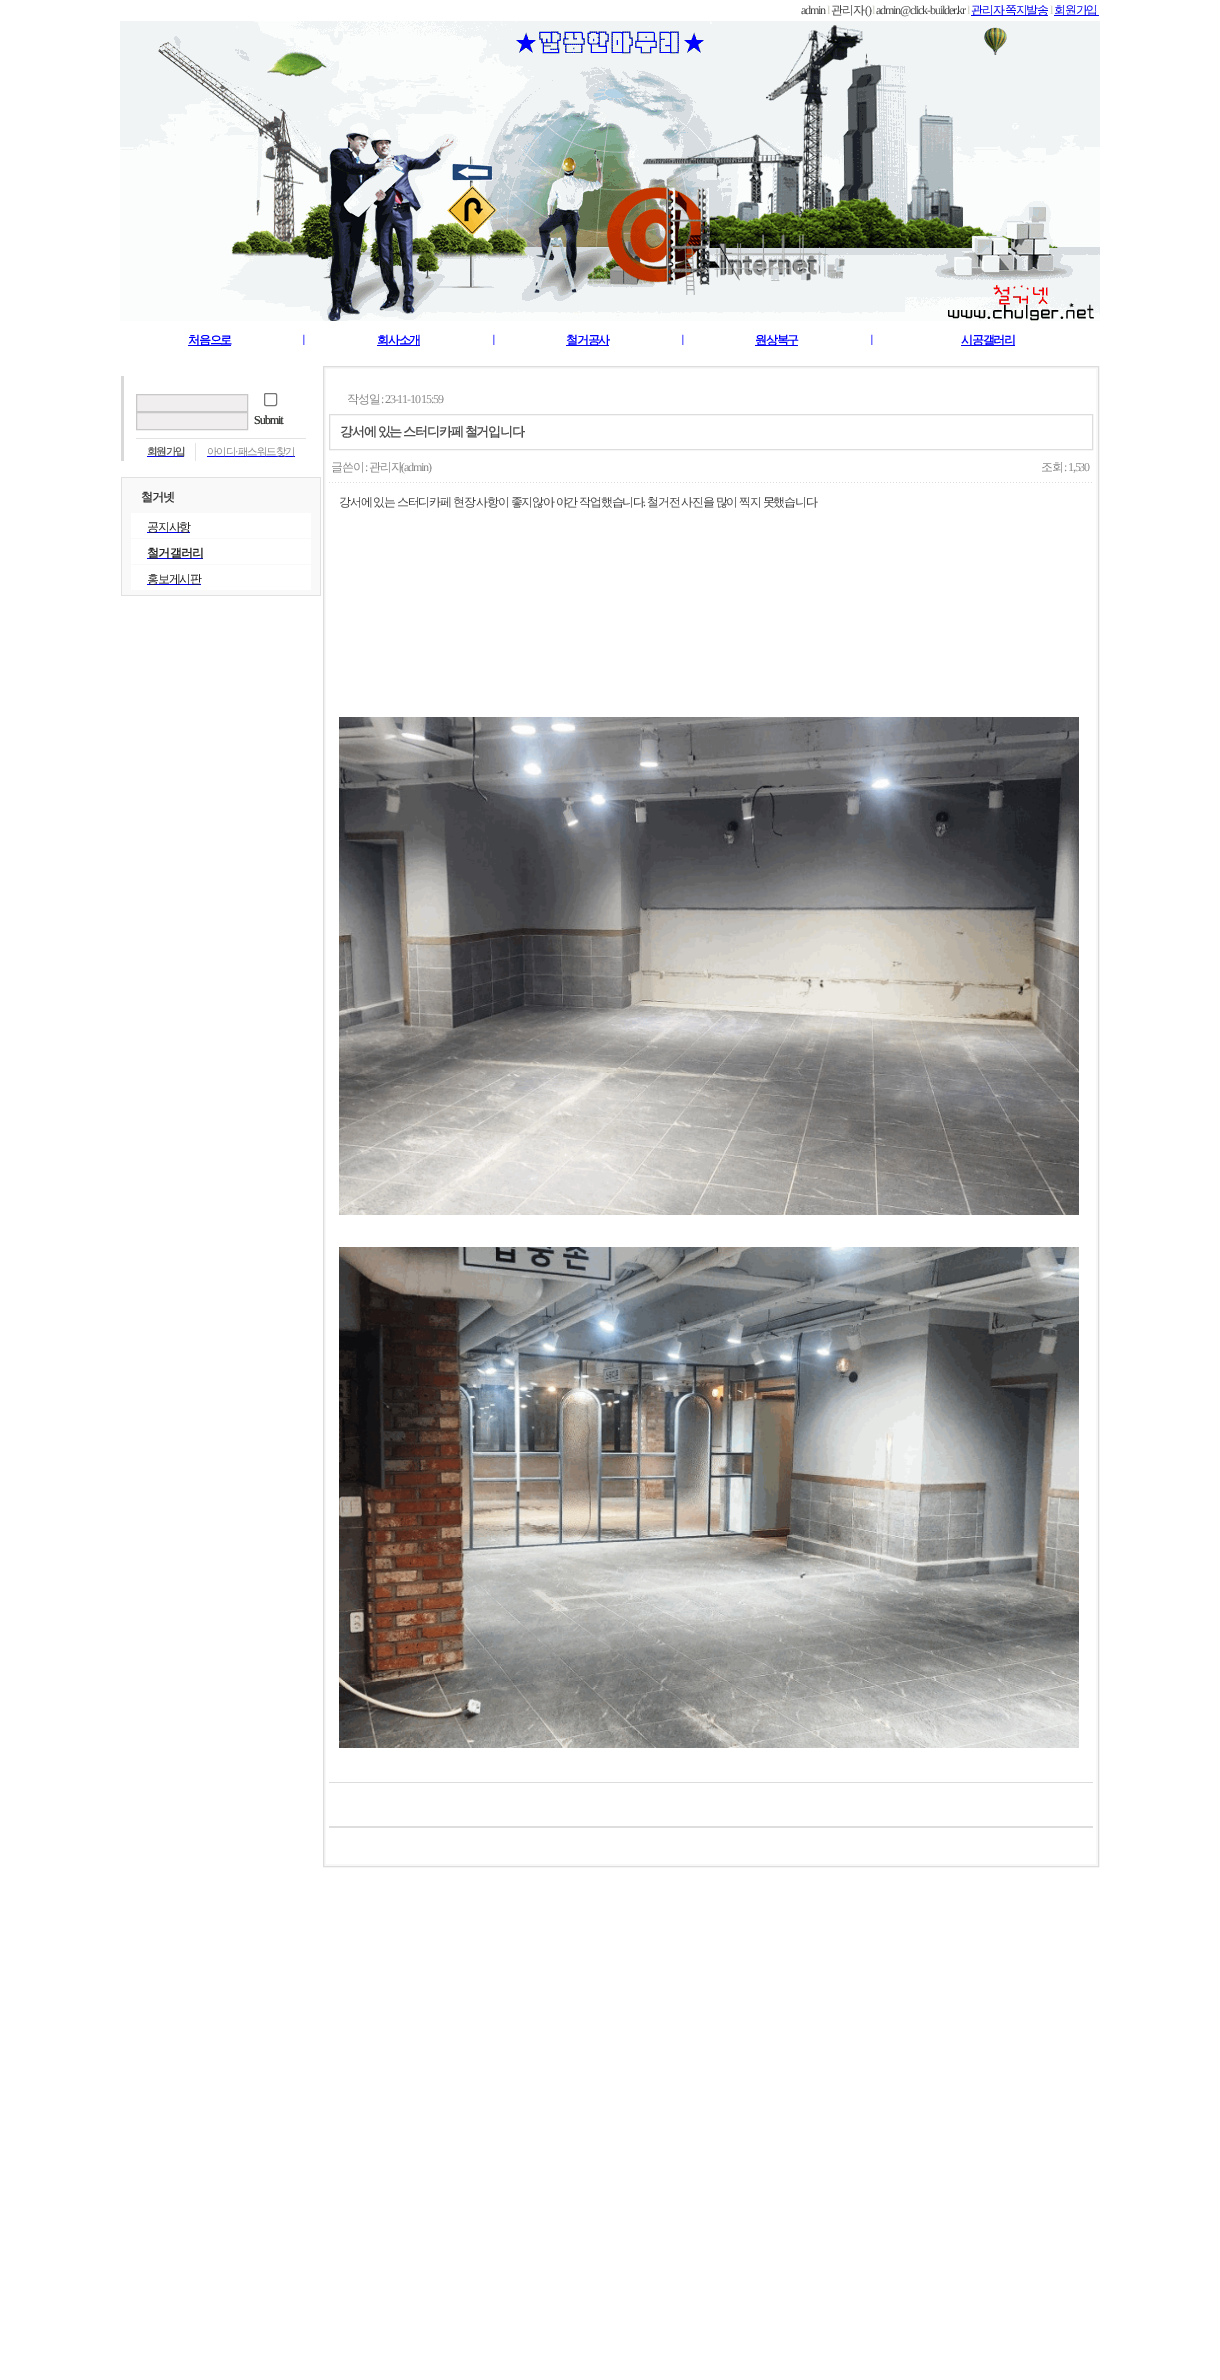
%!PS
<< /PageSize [1220 2380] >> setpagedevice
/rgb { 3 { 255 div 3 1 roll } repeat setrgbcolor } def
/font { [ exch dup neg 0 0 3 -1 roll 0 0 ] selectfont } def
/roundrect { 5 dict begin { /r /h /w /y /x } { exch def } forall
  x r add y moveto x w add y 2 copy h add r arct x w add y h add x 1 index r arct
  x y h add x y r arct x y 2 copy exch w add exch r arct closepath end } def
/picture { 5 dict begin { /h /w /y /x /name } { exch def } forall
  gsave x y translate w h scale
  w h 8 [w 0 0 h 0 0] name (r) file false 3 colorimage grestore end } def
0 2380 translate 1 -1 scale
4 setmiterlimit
255 255 255 rgb
0 0 1220 2380 rectfill
0 0 238 rgb
971 15 77 1 rectfill
1054 15 45 1 rectfill
(img_01.rgb) 120 21 980 300 picture
188 345 43 1 rectfill
377 345 43 1 rectfill
566 345 43 1 rectfill
755 345 43 1 rectfill
961 345 54 1 rectfill
217 217 217 rgb
121 376 3 85 rectfill
240 238 238 rgb
136.5 394.5 moveto 111 0 rlineto 0 17 rlineto -111 0 rlineto closepath gsave fill grestore
200 200 200 rgb
stroke
118 118 118 rgb
264.5 393.5 12 12 1.5 roundrect stroke
240 238 238 rgb
136.5 412.5 moveto 111 0 rlineto 0 17 rlineto -111 0 rlineto closepath gsave fill grestore
200 200 200 rgb
stroke
(img_02.rgb) 254 415 30 9 picture
228 228 228 rgb
136 438 170 1 rectfill
0 0 238 rgb
147 456 37 1 rectfill
228 228 228 rgb
195 443 1 18 rectfill
0 0 238 rgb
207 456 88 1 rectfill
225 225 225 rgb
121 477 200 119 rectfill
249 249 249 rgb
122 478 198 117 rectfill
255 255 255 rgb
131 513 180 25 rectfill
0 0 238 rgb
147 532 43 1 rectfill
255 255 255 rgb
131 539 180 25 rectfill
0 0 238 rgb
147 558 56 1 rectfill
255 255 255 rgb
131 565 180 25 rectfill
0 0 238 rgb
147 584 54 1 rectfill
248 248 249 rgb
323.5 366.5 moveto 775 0 rlineto 0 1500 rlineto -775 0 rlineto closepath gsave fill grestore
221 221 221 rgb
stroke
255 255 255 rgb
326 369 770 1495 rectfill
221 221 221 rgb
329.5 414.5 763 35 rectstroke
(img_03.rgb) 329 482 763 1 picture
(img_04.rgb) 339 717 740 498 picture
(img_05.rgb) 339 1247 740 501 picture
329 1782 764 1 rectfill
222 222 222 rgb
329 1826 764 2 rectfill
/LiberationSerif-Regular 12 font
68 68 68 rgb
801 14 moveto -1.2 0 (admin) ashow
204 204 192 rgb
827 14 moveto -1.2 0 (l) ashow
/WenQuanYiZenHei-Medium 12 font
68 68 68 rgb
831 14 moveto -1.2 0 (관리자) ashow
/LiberationSerif-Regular 12 font
865 14 moveto -1.2 0 (\(\)) ashow
204 204 192 rgb
872 14 moveto -1.2 0 (l) ashow
68 68 68 rgb
876 14 moveto -1.2 0 (admin@click-builder.kr) ashow
204 204 192 rgb
967 14 moveto -1.2 0 (l) ashow
/WenQuanYiZenHei-Medium 12 font
0 0 238 rgb
971 14 moveto -1 0 32 -1.2 0 (관리자 쪽지발송) awidthshow
/LiberationSerif-Regular 12 font
204 204 192 rgb
1050 14 moveto -1.2 0 (l) ashow
/WenQuanYiZenHei-Medium 12 font
0 0 238 rgb
1054 14 moveto -1.2 0 (회원가입) ashow
/WenQuanYiZenHei-Bold 12 font
0 0 255 rgb
188 344 moveto -1.2 0 (처음으로) ashow
/WenQuanYiZenHei-Medium 12 font
298 344 moveto -1.2 0 (ㅣ) ashow
/WenQuanYiZenHei-Bold 12 font
377 344 moveto -1.2 0 (회사소개) ashow
/WenQuanYiZenHei-Medium 12 font
488 344 moveto -1.2 0 (ㅣ) ashow
/WenQuanYiZenHei-Bold 12 font
566 344 moveto -1.2 0 (철거공사) ashow
/WenQuanYiZenHei-Medium 12 font
677 344 moveto -1.2 0 (ㅣ) ashow
/WenQuanYiZenHei-Bold 12 font
755 344 moveto -1.2 0 (원상복구) ashow
/WenQuanYiZenHei-Medium 12 font
866 344 moveto -1.2 0 (ㅣ) ashow
/WenQuanYiZenHei-Bold 12 font
961 344 moveto -1.2 0 (시공갤러리) ashow
/LiberationSerif-Regular 12 font
57 60 57 rgb
254 424 moveto -1 0 (Submit) ashow
/WenQuanYiZenHei-Bold 10.5 font
91 91 91 rgb
147 455 moveto -1.25 0 (회원가입) ashow
/WenQuanYiZenHei-Medium 10.5 font
136 136 136 rgb
207 455 moveto -1.25 0 (아이디) ashow
/LiberationSerif-Regular 10.5 font
235 455 moveto -1.25 0 (·) ashow
/WenQuanYiZenHei-Medium 10.5 font
238 455 moveto -1 0 32 -1.25 0 (패스워드 찾기) awidthshow
/WenQuanYiZenHei-Bold 12 font
50 50 50 rgb
141 501 moveto -1.2 0 (철거넷) ashow
/WenQuanYiZenHei-Medium 12 font
34 34 34 rgb
147 531 moveto -1.2 0 (공지사항) ashow
/WenQuanYiZenHei-Bold 12 font
147 557 moveto -1 0 32 -1.2 0 (철거 갤러리) awidthshow
/WenQuanYiZenHei-Medium 12 font
147 583 moveto -1.2 0 (홍보게시판) ashow
136 136 136 rgb
347 403 moveto -1.2 0 (작성일) ashow
/LiberationSerif-Regular 12 font
381 403 moveto -1.2 0 (: 23-11-10 15:59) ashow
/WenQuanYiZenHei-Bold 13 font
80 80 80 rgb
340 436 moveto -0.5 0 32 -1.2 0 (강서에 있는 스터디카페 철거입니다) awidthshow
/WenQuanYiZenHei-Medium 12 font
136 136 136 rgb
331 471 moveto -1.2 0 (글쓴이) ashow
/LiberationSerif-Regular 12 font
365 471 moveto -1.2 0 (:) ashow
/WenQuanYiZenHei-Medium 12 font
369 471 moveto -1.2 0 (관리자) ashow
/LiberationSerif-Regular 12 font
401 471 moveto -1.2 0 (\(admin\)) ashow
/WenQuanYiZenHei-Medium 12 font
1041 471 moveto -1.2 0 (조회) ashow
/LiberationSerif-Regular 12 font
1064 471 moveto -1.2 0 (: 1,530) ashow
/WenQuanYiZenHei-Medium 12 font
68 68 68 rgb
339 506 moveto -0.5 0 32 -1.2 0 (강서에 있는 스터디카페 현장 사항이 좋지않아 야간 작업했습니다) awidthshow
647 506 moveto -0.5 0 32 -1.2 0 (철거전 사진을 많이 찍지 못했습니다) awidthshow
/LiberationSerif-Regular 12 font
643 506 moveto -1.2 0 (.) ashow
showpage
